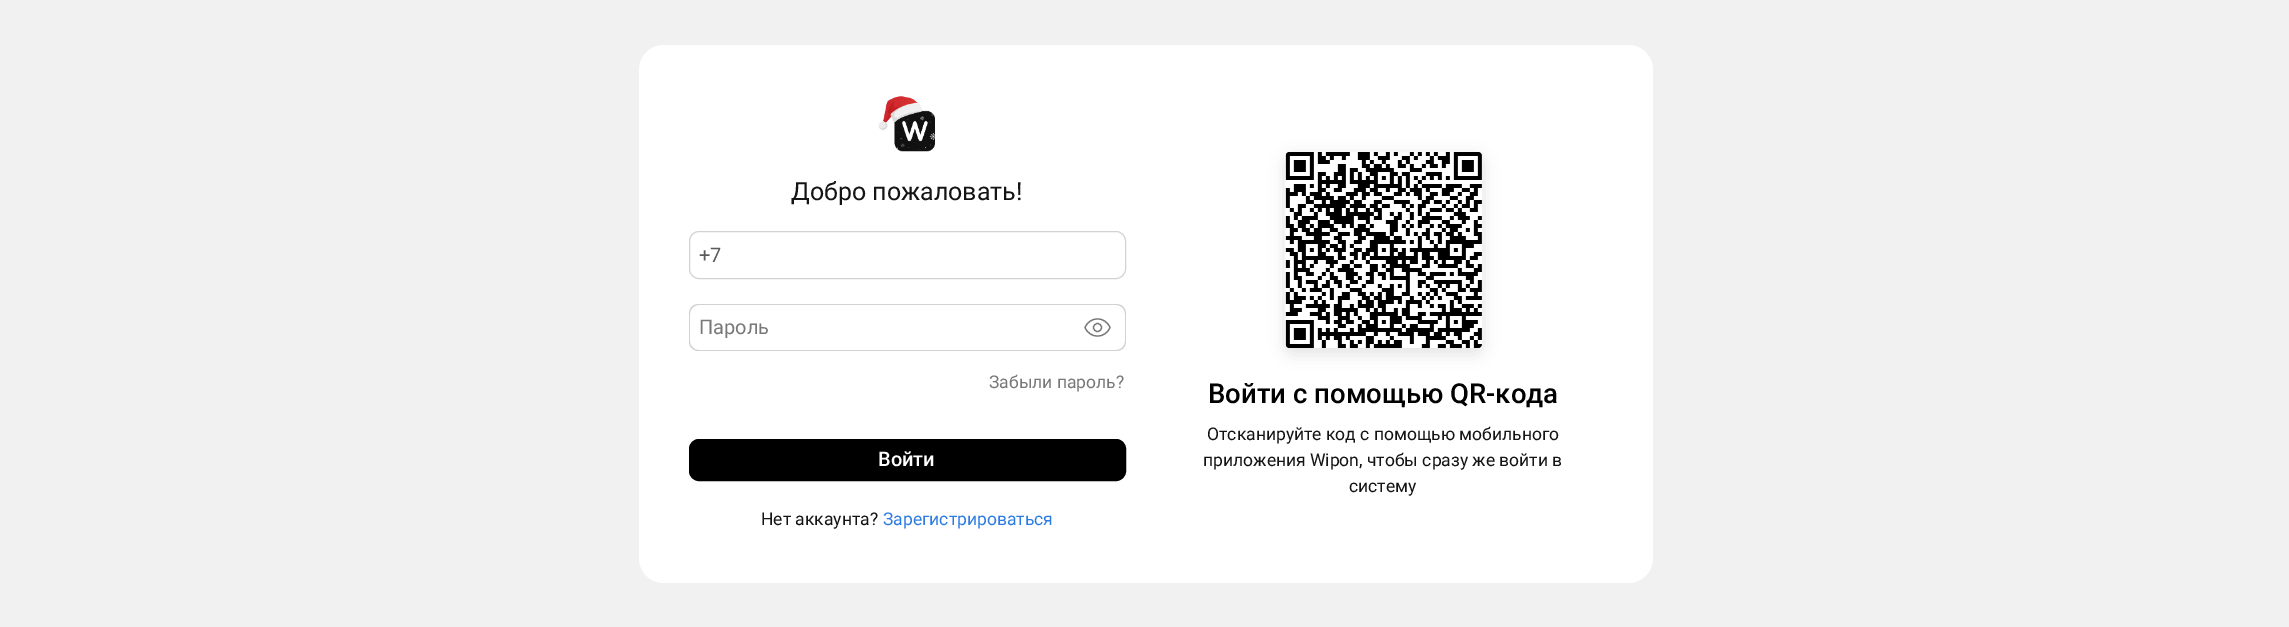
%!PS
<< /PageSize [2289 627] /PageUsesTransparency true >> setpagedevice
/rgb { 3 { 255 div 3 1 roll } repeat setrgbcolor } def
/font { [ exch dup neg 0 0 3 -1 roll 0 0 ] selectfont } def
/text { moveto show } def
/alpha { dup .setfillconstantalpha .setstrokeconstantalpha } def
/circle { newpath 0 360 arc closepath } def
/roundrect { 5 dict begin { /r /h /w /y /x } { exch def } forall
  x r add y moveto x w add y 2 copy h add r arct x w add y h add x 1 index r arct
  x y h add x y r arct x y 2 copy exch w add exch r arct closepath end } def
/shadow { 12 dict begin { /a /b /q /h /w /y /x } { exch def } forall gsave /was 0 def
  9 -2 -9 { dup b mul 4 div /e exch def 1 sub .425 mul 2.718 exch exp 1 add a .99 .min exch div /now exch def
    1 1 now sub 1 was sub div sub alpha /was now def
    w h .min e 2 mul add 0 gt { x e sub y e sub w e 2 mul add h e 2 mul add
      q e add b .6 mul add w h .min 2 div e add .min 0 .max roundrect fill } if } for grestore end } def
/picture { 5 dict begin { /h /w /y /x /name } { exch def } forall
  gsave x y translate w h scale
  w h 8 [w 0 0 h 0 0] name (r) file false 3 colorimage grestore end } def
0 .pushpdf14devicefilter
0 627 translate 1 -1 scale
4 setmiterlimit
241 241 241 rgb
0 0 2289 627 rectfill
255 255 255 rgb
639 45 1014 538 25 roundrect fill
(img_01.rgb) 878 96 57 56 picture
210 210 210 rgb
689.5 231.5 436 47 9.5 roundrect stroke
1070 304 moveto 46 0 rlineto 6 0 10 4 10 10 rcurveto 0 27 rlineto 0 6 -4 10 -10 10 rcurveto -46 0 rlineto closepath 1070 305 moveto 46 0 rlineto 5 0 9 4 9 9 rcurveto 0 27 rlineto 0 5 -4 9 -9 9 rcurveto -46 0 rlineto closepath eofill
699 304 moveto 372 0 rlineto 0 47 rlineto -372 0 rlineto -6 0 -10 -4 -10 -10 rcurveto 0 -27 rlineto 0 -6 4 -10 10 -10 rcurveto closepath 699 305 moveto 372 0 rlineto 0 45 rlineto -372 0 rlineto -5 0 -9 -4 -9 -9 rcurveto 0 -27 rlineto 0 -5 4 -9 9 -9 rcurveto closepath eofill
120 120 120 rgb
1.2 setlinewidth
1 setlinecap
1 setlinejoin
1085 327.5 moveto 5 -11.5 20 -11.5 25 0 rcurveto -5 11.5 -20 11.5 -25 0 rcurveto closepath stroke
0 setlinecap
0 setlinejoin
1097.5 327.5 4 circle stroke
0 0 0 rgb
689.5 439.5 436 41 9.5 roundrect gsave fill grestore
1 setlinewidth
stroke
1284 155 200 200 10 7.5 0.1 shadow
(img_02.rgb) 1285 152 197 196 picture
/Roboto-Regular 25 font
20 20 20 rgb
(Добро пожаловать!) 791 200 text
/Roboto-Regular 20 font
90 90 90 rgb
(+7) 699 262 text
120 120 120 rgb
(Пароль) 699 334 text
/Roboto-Regular 17.5 font
(Забыли пароль?) 989 388 text
/Roboto-Medium 20 font
255 255 255 rgb
(Войти) 878 466 text
/Roboto-Regular 17.5 font
20 20 20 rgb
(Нет аккаунта?) 761 525 text
46 124 225 rgb
(Зарегистрироваться) 883 525 text
/Roboto-Medium 27.5 font
0 0 0 rgb
(Войти с помощью QR-кода) 1208 403 text
/Roboto-Regular 17.5 font
20 20 20 rgb
(Отсканируйте код с помощью мобильного) 1207 440 text
(приложения Wipon, чтобы сразу же войти в) 1203 466 text
(систему) 1349 492 text
.poppdf14devicefilter showpage
